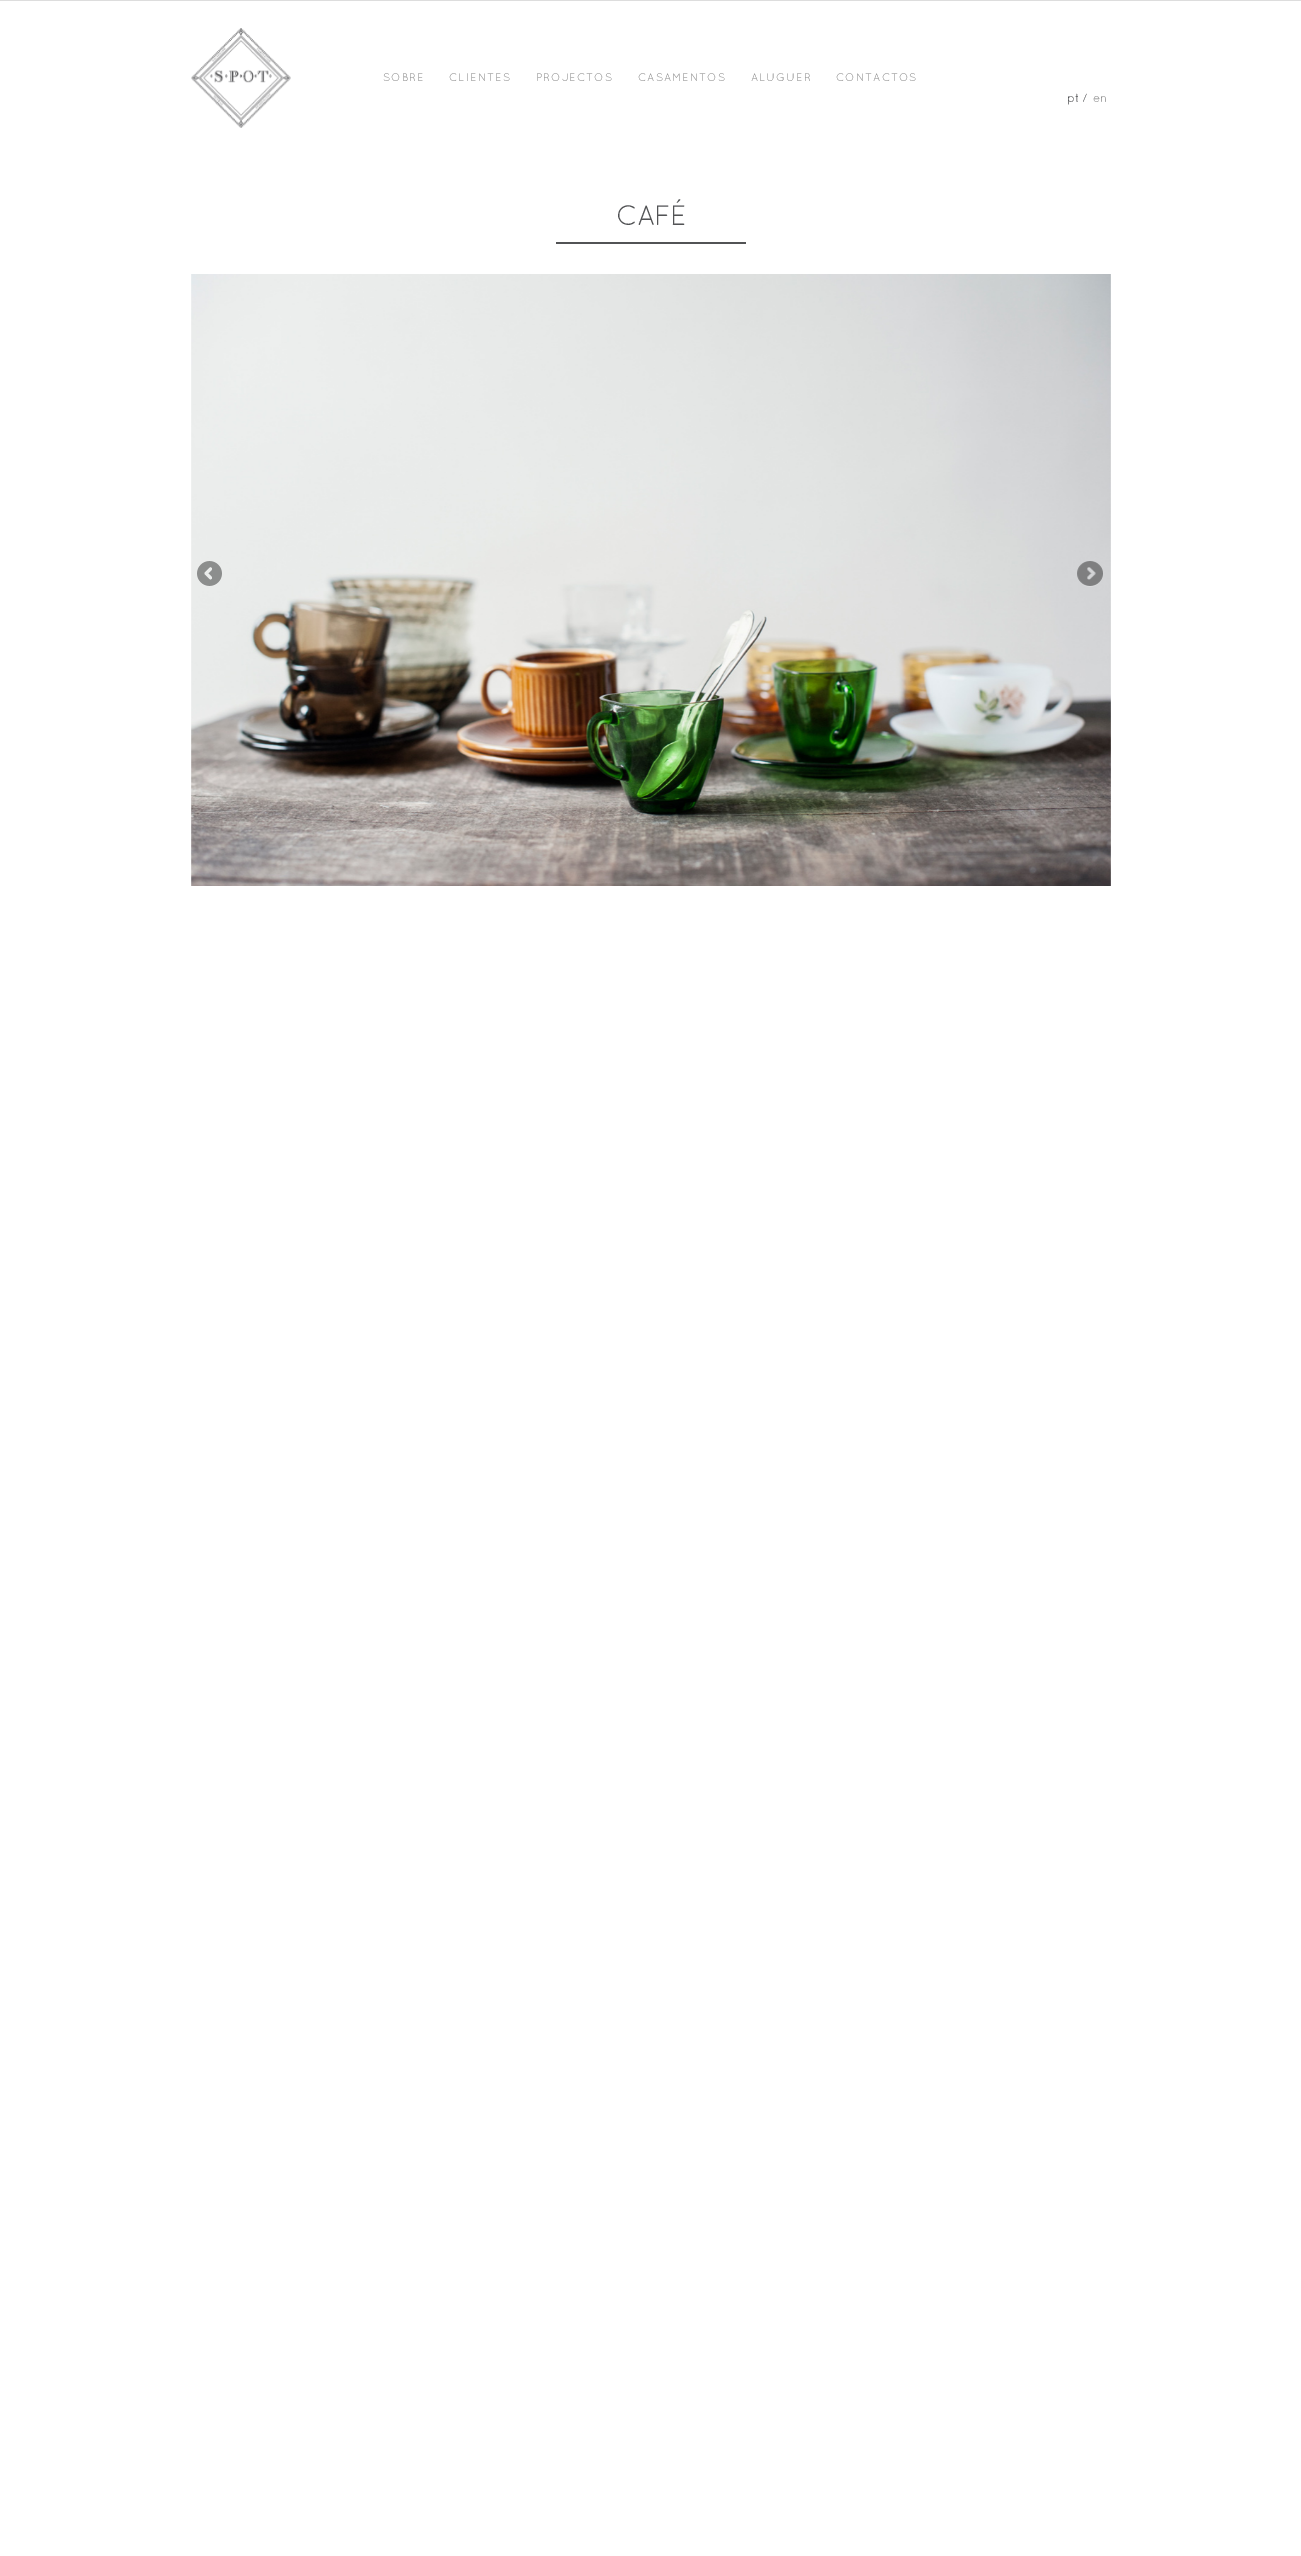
%!PS
<< /PageSize [1301 2556] >> setpagedevice
/rgb { 3 { 255 div 3 1 roll } repeat setrgbcolor } def
/font { [ exch dup neg 0 0 3 -1 roll 0 0 ] selectfont } def
/text { moveto show } def
/picture { 5 dict begin { /h /w /y /x /name } { exch def } forall
  gsave x y translate w h scale
  w h 8 [w 0 0 h 0 0] name (r) file false 3 colorimage grestore end } def
0 2556 translate 1 -1 scale
4 setmiterlimit
255 255 255 rgb
0 0 1301 2556 rectfill
221 221 221 rgb
0 0 1301 1 rectfill
(img_01.rgb) 191 28 100 100 picture
82 83 85 rgb
556 242 190 2 rectfill
(img_02.rgb) 191 274 920 612 picture
(img_03.rgb) 197 561 25 25 picture
(img_04.rgb) 1077 561 26 26 picture
/Quicksand-Regular 11 font
136 136 136 rgb
383 81 moveto 1 0 (SOBRE) ashow
449 81 moveto 1 0 (CLIENTES) ashow
536 81 moveto 1 0 (PROJECTOS) ashow
638 81 moveto 1 0 (CASAMENTOS) ashow
751 81 moveto 1 0 (ALUGUER) ashow
836 81 moveto 1 0 (CONTACTOS) ashow
/Quicksand-Regular 12 font
82 83 85 rgb
(pt) 1067 102 text
(/) 1082 102 text
136 136 136 rgb
(en) 1093 102 text
/Quicksand-Regular 28 font
82 83 85 rgb
616 225 moveto -1 0 (CAFÉ) ashow
showpage
